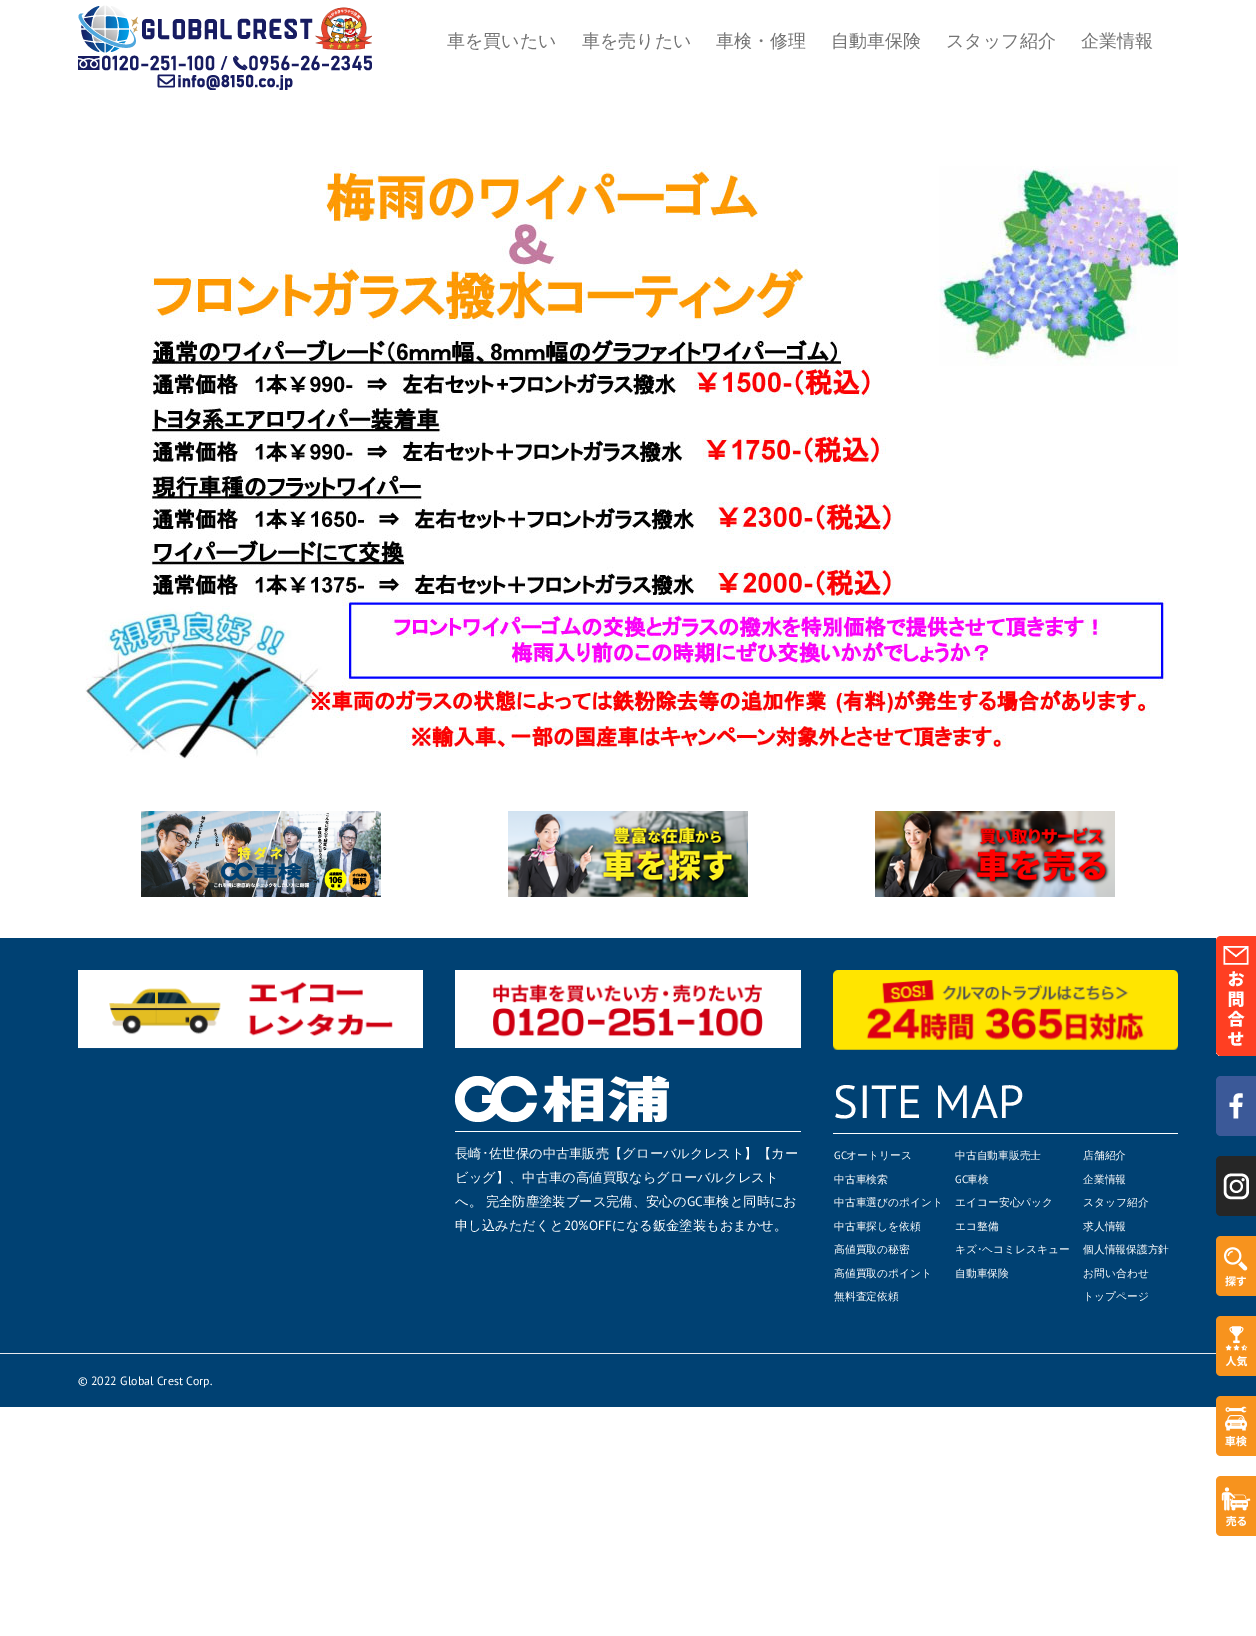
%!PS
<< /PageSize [1256 1636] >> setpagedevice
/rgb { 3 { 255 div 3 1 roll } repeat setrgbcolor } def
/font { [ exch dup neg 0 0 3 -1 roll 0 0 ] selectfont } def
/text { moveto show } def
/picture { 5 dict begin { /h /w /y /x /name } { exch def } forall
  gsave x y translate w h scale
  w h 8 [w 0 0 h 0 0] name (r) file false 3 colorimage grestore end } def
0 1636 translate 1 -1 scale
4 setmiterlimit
255 255 255 rgb
0 0 1256 1636 rectfill
(img_01.rgb) 78 5 294 85 picture
(img_02.rgb) 85 166 1093 593 picture
(img_03.rgb) 141 811 240 86 picture
(img_04.rgb) 508 811 240 86 picture
(img_05.rgb) 875 811 240 86 picture
0 65 115 rgb
0 938 1256 415 rectfill
(img_06.rgb) 78 970 345 79 picture
(img_07.rgb) 455 970 346 78 picture
(img_08.rgb) 455 1076 214 46 picture
255 255 255 rgb
455 1131 346 1 rectfill
(img_09.rgb) 833 970 345 80 picture
833 1133 345 1 rectfill
0 65 115 rgb
0 1354 1256 53 rectfill
233 234 238 rgb
0 1353 1216 1 rectfill
(img_10.rgb) 1216 936 40 120 picture
(img_11.rgb) 1216 1076 40 60 picture
(img_12.rgb) 1216 1156 40 60 picture
(img_13.rgb) 1216 1236 40 60 picture
(img_14.rgb) 1216 1316 40 60 picture
(img_15.rgb) 1216 1396 40 60 picture
(img_16.rgb) 1216 1476 40 60 picture
/WenQuanYiZenHei-Medium 18 font
116 116 116 rgb
(車を買いたい) 447 47 text
(車を売りたい) 582 47 text
(車検・修理) 716 47 text
(自動車保険) 831 47 text
(スタッフ紹介) 946 47 text
(企業情報) 1081 47 text
/WenQuanYiZenHei-Medium 13.3 font
255 255 255 rgb
(長崎) 455 1158 text
/IPAPGothic-Regular 13.3 font
(･) 482 1158 text
/WenQuanYiZenHei-Medium 13.3 font
(佐世保の中古車販売【グローバルクレスト】【カー) 489 1158 text
(ビッグ】、中古車の高値買取ならグローバルクレスト) 455 1182 text
(へ。 完全防塵塗装ブース完備、安心の) 455 1206 text
/PTSans-Regular 13.3 font
(GC) 687 1206 text
/WenQuanYiZenHei-Medium 13.3 font
(車検と同時にお) 703 1206 text
(申し込みただくと) 455 1230 text
/PTSans-Regular 13.3 font
(20%OFF) 564 1230 text
/WenQuanYiZenHei-Medium 13.3 font
(になる鈑金塗装もおまかせ。) 612 1230 text
/PTSans-Regular 46.5 font
(SITE MAP) 833 1118 text
/PTSans-Regular 10.75 font
(GC) 834 1159 text
/WenQuanYiZenHei-Medium 10.75 font
(オートリース) 846 1159 text
(中古車検索) 834 1183 text
(中古車選びのポイント) 834 1206 text
(中古車探しを依頼) 834 1230 text
(高値買取の秘密) 834 1253 text
(高値買取のポイント) 834 1277 text
(無料査定依頼) 834 1300 text
(中古自動車販売士) 955 1159 text
/PTSans-Regular 10.75 font
(GC) 955 1183 text
/WenQuanYiZenHei-Medium 10.75 font
(車検) 967 1183 text
(エイコー安心パック) 955 1206 text
(エコ整備) 955 1230 text
(キズ) 955 1253 text
/IPAPGothic-Regular 10.75 font
(･) 977 1253 text
/WenQuanYiZenHei-Medium 10.75 font
(ヘコミレスキュー) 982 1253 text
(自動車保険) 955 1277 text
(店舗紹介) 1083 1159 text
(企業情報) 1083 1183 text
(スタッフ紹介) 1083 1206 text
(求人情報) 1083 1230 text
(個人情報保護方針) 1083 1253 text
(お問い合わせ) 1083 1277 text
(トップページ) 1083 1300 text
/PTSans-Regular 12 font
(© 2022 Global Crest Corp.) 78 1385 text
showpage
